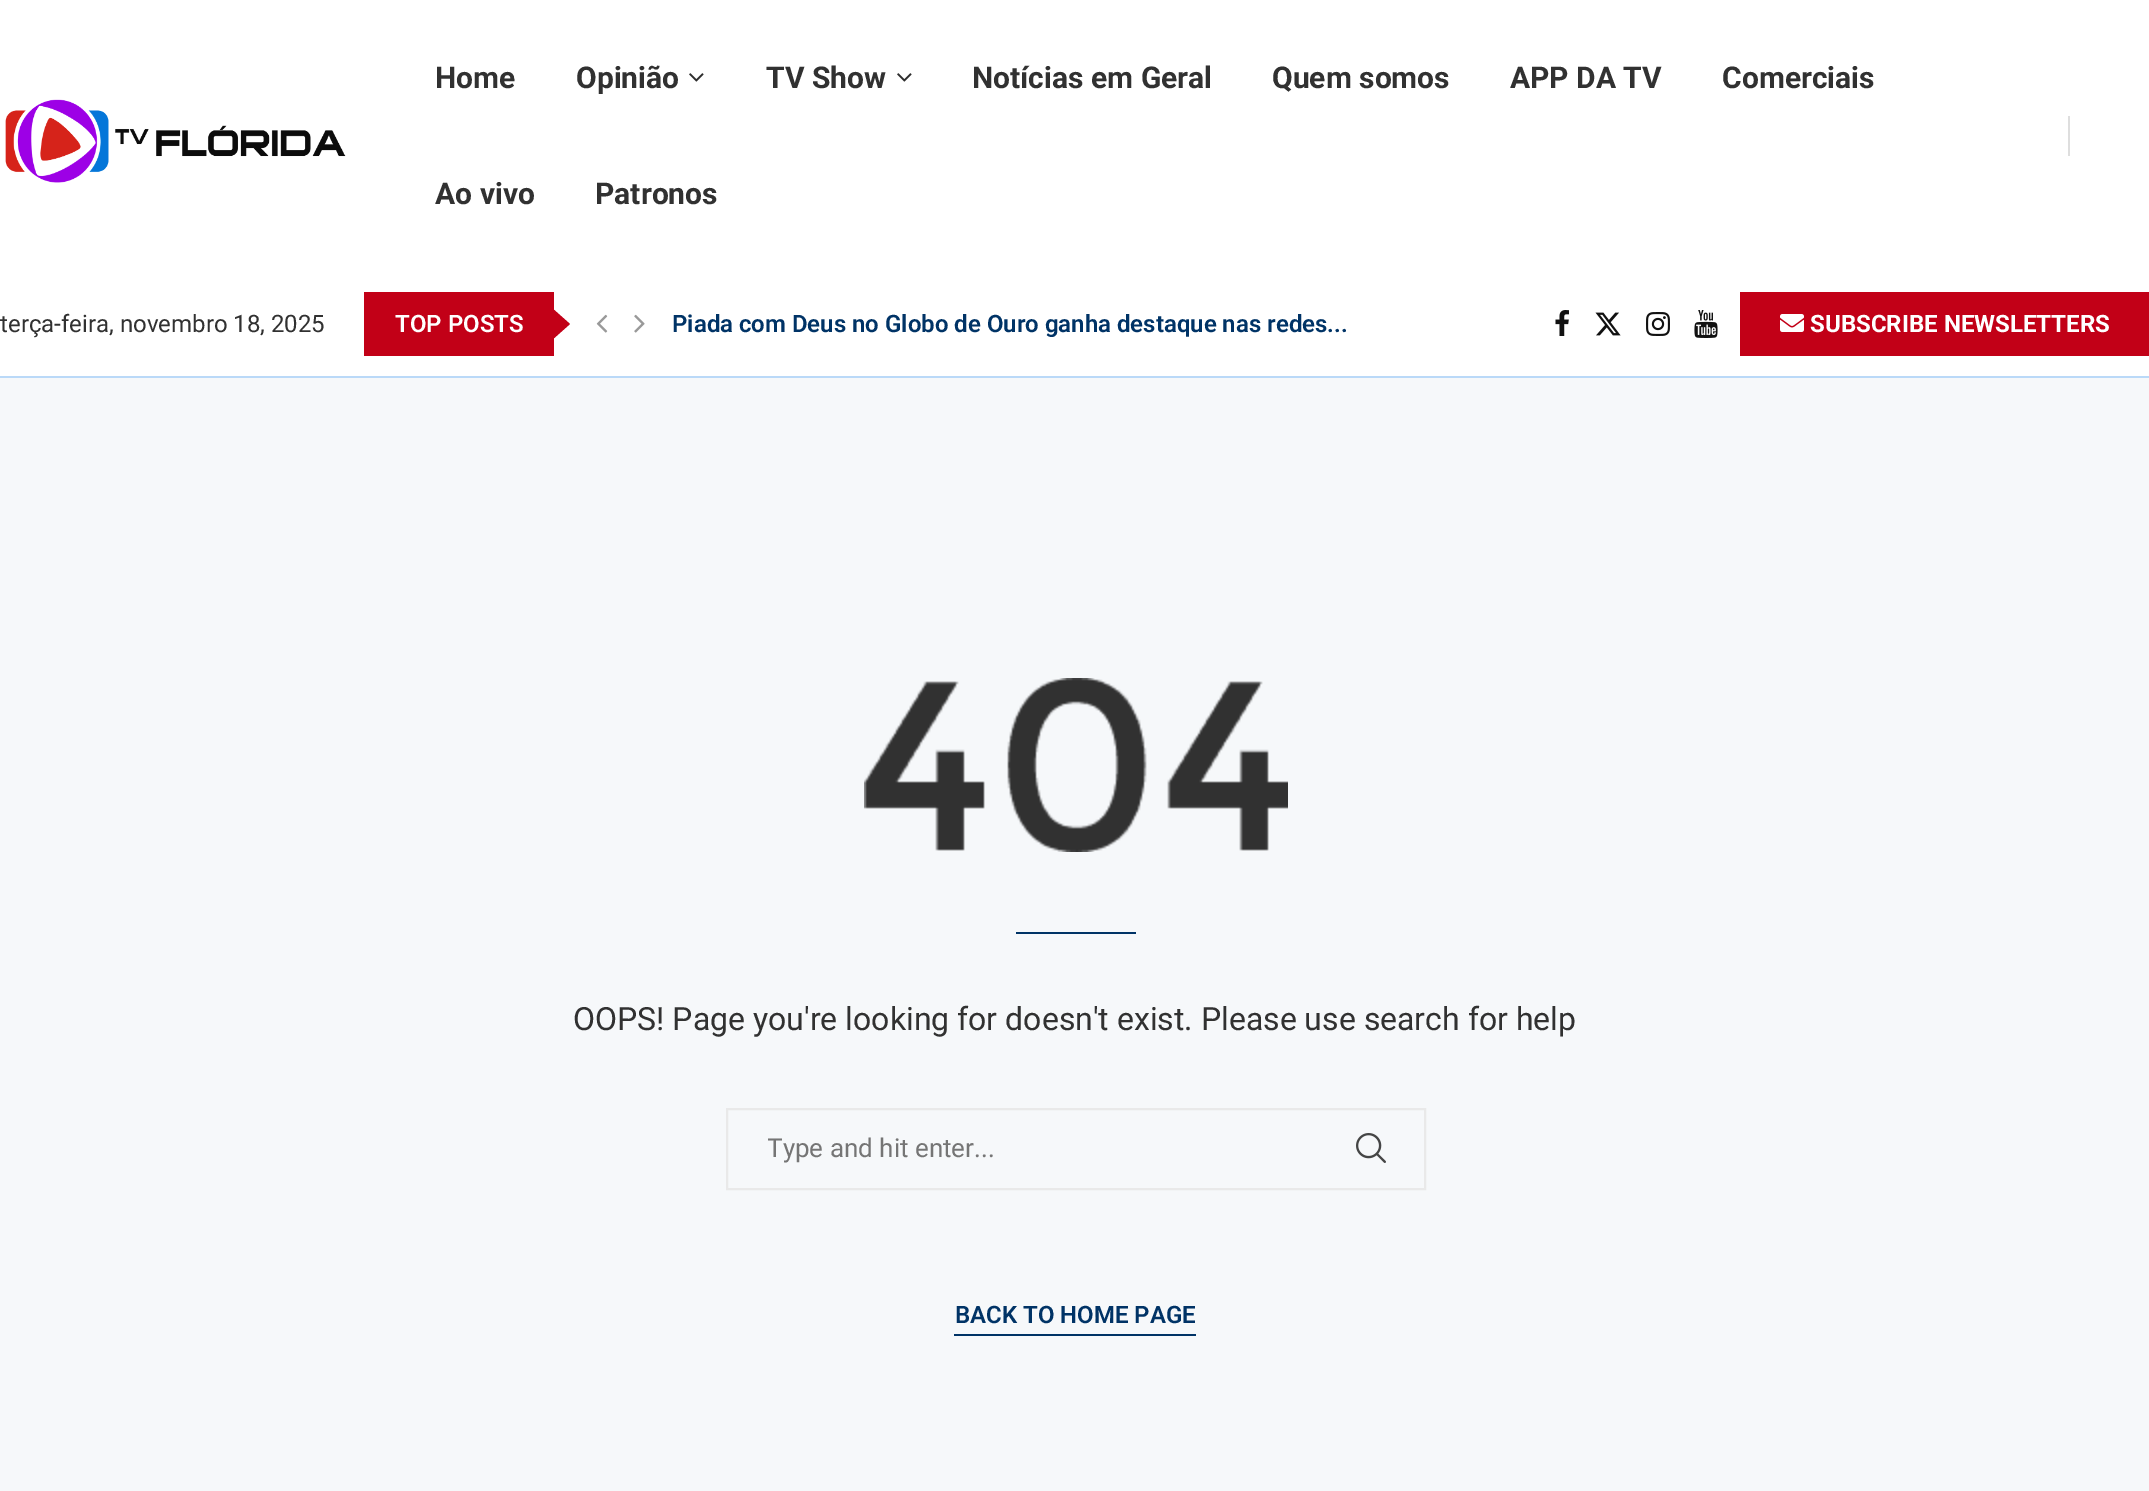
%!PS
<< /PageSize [2149 1491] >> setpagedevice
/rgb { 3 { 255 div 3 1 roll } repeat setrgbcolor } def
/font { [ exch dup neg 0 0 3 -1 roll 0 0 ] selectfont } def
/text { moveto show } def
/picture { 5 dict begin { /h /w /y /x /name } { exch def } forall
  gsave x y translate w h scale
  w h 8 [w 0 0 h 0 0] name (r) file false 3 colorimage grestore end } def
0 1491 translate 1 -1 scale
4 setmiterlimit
246 248 250 rgb
0 0 2149 1491 rectfill
255 255 255 rgb
0 0 2149 376 rectfill
(img_01.rgb) 5 99 341 84 picture
(img_02.rgb) 689 73 15 9 picture
(img_02.rgb) 897 73 15 9 picture
222 222 222 rgb
2068 116 2 40 rectfill
186 217 248 rgb
0 376 2149 2 rectfill
194 0 23 rgb
364 292 190 64 rectfill
552 340 moveto 0 -32 rlineto 18 16 rlineto closepath fill
(img_03.rgb) 596 314 12 19 picture
(img_04.rgb) 634 314 11 19 picture
(img_05.rgb) 1555 310 14 26 picture
(img_06.rgb) 1595 312 26 24 picture
(img_07.rgb) 1646 312 24 24 picture
(img_08.rgb) 1694 310 24 28 picture
1740 292 409 64 rectfill
(img_09.rgb) 1780 314 24 18 picture
(img_10.rgb) 864 678 424 174 picture
0 51 102 rgb
1016 932 120 2 rectfill
233 233 233 rgb
2 setlinewidth
727 1109 698 80 rectstroke
(img_11.rgb) 1356 1133 30 30 picture
0 51 102 rgb
954 1334 242 2 rectfill
/Roboto-Bold 30 font
49 49 49 rgb
(Home) 435 88 text
(Opinião) 576 88 text
(TV Show) 766 88 text
(Notícias em Geral) 972 88 text
(Quem somos) 1272 88 text
(APP DA TV) 1510 88 text
(Comerciais) 1722 88 text
(Ao vivo) 435 204 text
(Patronos) 595 204 text
/Roboto-Regular 24 font
(terça-feira, novembro 18, 2025) 0 332 text
/Roboto-SemiBold 24 font
255 255 255 rgb
(TOP POSTS) 395 332 text
0 51 102 rgb
(Piada com Deus no Globo de Ouro ganha destaque nas redes...) 672 332 text
/Roboto-Bold 24 font
255 255 255 rgb
(SUBSCRIBE NEWSLETTERS) 1810 332 text
/Roboto-Regular 32 font
49 49 49 rgb
(OOPS! Page you're looking for doesn't exist. Please use search for help) 573 1030 text
gsave
768 1134 576 30 rectclip
/Roboto-Regular 26 font
117 117 117 rgb
(Type and hit enter...) 767 1157 text
grestore
/Roboto-SemiBold 24 font
0 51 102 rgb
(BACK TO HOME PAGE) 955 1323 text
showpage
